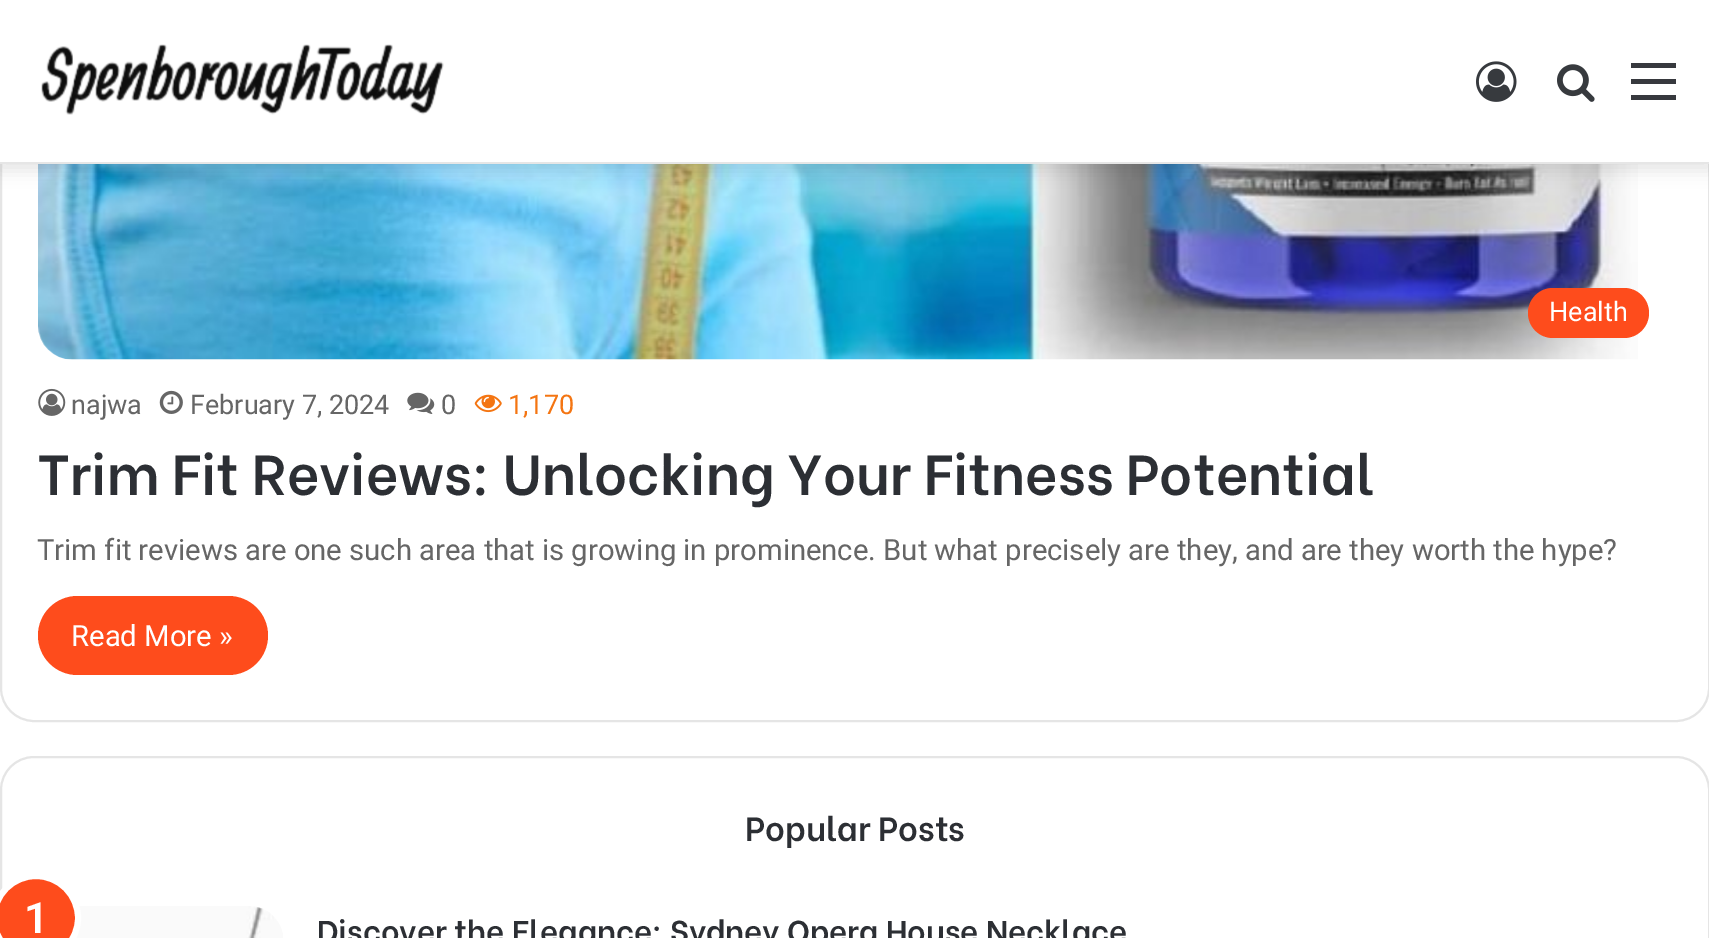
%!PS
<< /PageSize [1709 938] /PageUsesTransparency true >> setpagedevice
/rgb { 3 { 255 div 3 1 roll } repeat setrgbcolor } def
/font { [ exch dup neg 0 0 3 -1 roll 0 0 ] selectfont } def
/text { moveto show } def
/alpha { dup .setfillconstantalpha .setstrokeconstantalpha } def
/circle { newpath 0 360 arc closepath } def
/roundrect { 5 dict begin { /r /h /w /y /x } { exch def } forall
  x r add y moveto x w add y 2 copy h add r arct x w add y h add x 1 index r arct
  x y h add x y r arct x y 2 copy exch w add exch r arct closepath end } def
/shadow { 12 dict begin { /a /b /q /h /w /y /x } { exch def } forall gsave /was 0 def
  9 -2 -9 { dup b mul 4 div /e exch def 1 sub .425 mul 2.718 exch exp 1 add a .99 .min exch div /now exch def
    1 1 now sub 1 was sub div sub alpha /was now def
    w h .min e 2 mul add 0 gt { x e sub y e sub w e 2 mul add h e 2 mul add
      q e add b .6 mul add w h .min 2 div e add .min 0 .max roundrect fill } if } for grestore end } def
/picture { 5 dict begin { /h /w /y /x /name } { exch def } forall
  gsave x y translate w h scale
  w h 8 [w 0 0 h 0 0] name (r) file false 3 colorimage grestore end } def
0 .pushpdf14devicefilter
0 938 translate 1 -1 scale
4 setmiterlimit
255 255 255 rgb
0 0 1709 938 rectfill
229 229 229 rgb
2 setlinewidth
1 -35 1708 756 33 roundrect stroke
(img_04.rgb) 38 164 1600 196 picture
0 0 0 rgb
0 7 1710 164 0 8 0.1 shadow
255 255 255 rgb
0 0 1709 162 rectfill
230 230 230 rgb
0 162 1709 2 rectfill
(img_01.rgb) 41 44 403 71 picture
(img_02.rgb) 1476 61 41 41 picture
(img_03.rgb) 1557 64 38 38 picture
55 57 62 rgb
1631 79 45 5 rectfill
1631 63 45 5 rectfill
1631 95 45 5 rectfill
254 76 28 rgb
1528 288 121 50 25 roundrect fill
(img_05.rgb) 38 388 28 28 picture
(img_06.rgb) 159 390 24 24 picture
(img_07.rgb) 407 392 28 22 picture
(img_08.rgb) 474 394 28 19 picture
38 596 230 79 39.5 roundrect fill
229 229 229 rgb
1 757 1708 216 33 roundrect stroke
(img_09.rgb) 76 906 207 32 picture
254 76 28 rgb
36 918 42 circle gsave fill grestore
255 255 255 rgb
6 setlinewidth
stroke
/Roboto-Regular 27 font
(Health) 1549 321 text
102 102 102 rgb
(najwa) 71 414 text
(February 7, 2024) 190 414 text
(0) 441 414 text
244 117 18 rgb
(1,170) 508 414 text
/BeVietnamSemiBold-SemiBold 56.25 font
44 47 52 rgb
(Trim Fit Reviews: Unlocking Your Fitness Potential) 37 495 text
/Roboto-Regular 29.25 font
102 102 102 rgb
(Trim fit reviews are one such area that is growing in prominence. But what precisely are they, and are they worth the hype?) 37 560 text
255 255 255 rgb
(Read More ») 71 646 text
/BeVietnamSemiBold-SemiBold 33.75 font
44 47 52 rgb
(Popular Posts) 745 841 text
/Roboto-SemiBold 43 font
255 255 255 rgb
(1) 24 933 text
/BeVietnamSemiBold-SemiBold 31.5 font
44 47 52 rgb
(Discover the Elegance: Sydney Opera House Necklace) 317 943 text
.poppdf14devicefilter showpage
